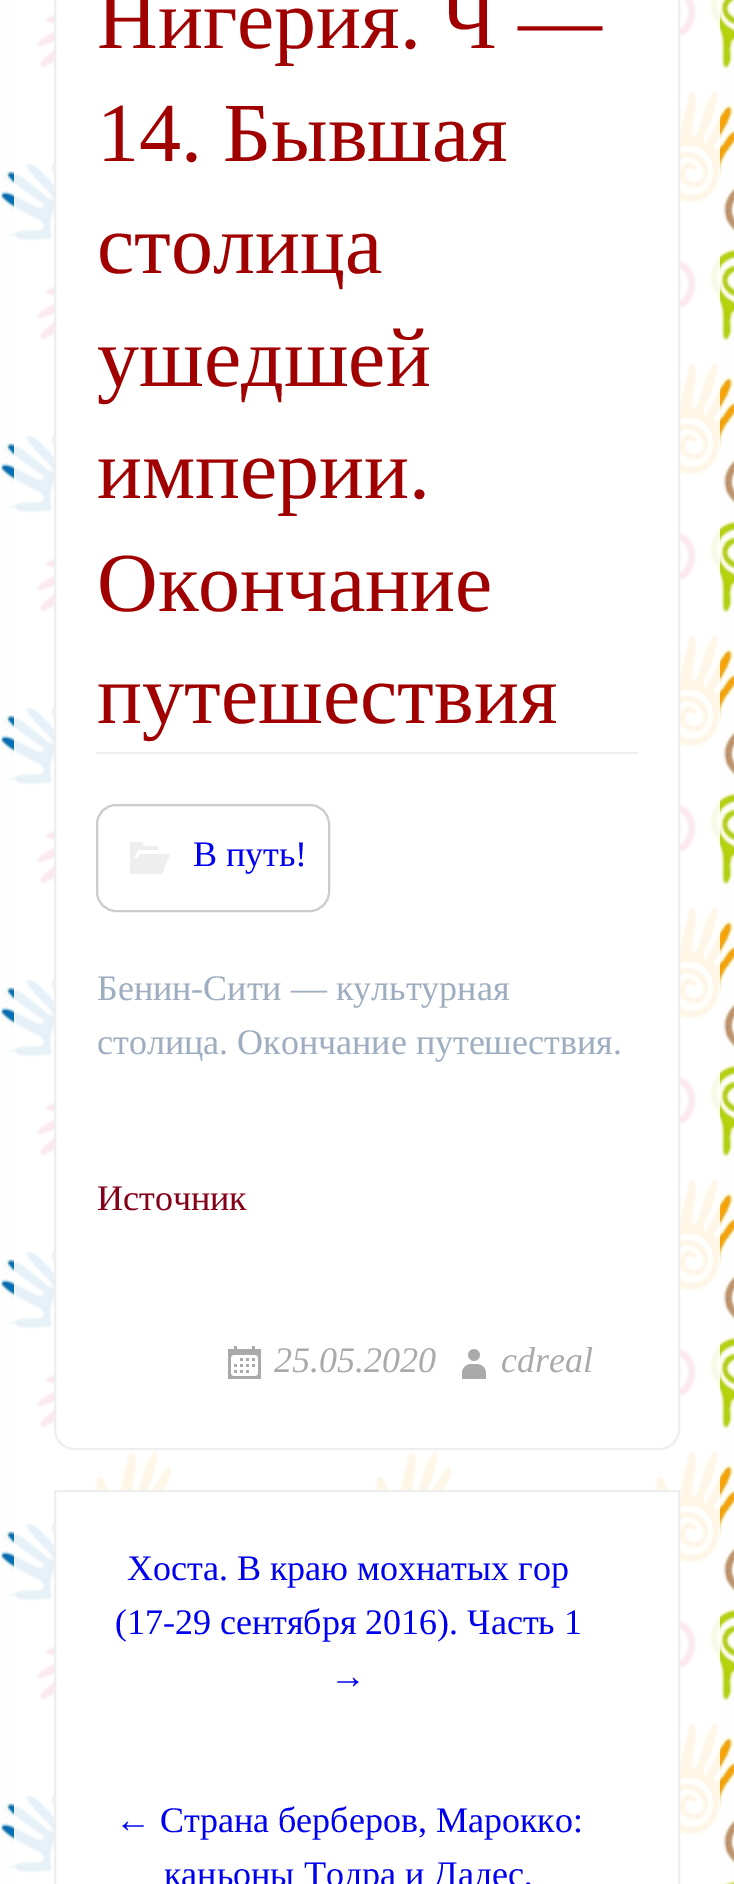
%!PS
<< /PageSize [734 1884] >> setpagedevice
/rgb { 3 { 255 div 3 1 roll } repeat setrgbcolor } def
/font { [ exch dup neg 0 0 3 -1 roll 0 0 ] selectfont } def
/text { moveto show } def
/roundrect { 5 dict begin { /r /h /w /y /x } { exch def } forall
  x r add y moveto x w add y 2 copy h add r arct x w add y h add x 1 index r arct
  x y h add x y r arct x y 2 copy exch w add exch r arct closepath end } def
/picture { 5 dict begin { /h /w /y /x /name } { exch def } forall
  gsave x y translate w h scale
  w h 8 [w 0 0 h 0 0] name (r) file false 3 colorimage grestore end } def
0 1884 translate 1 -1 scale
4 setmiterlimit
255 255 255 rgb
0 0 734 1884 rectfill
(img_01.rgb) 0 0 734 1884 picture
55 -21 624 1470 19 roundrect gsave fill grestore
238 238 238 rgb
2 setlinewidth
stroke
96 752 542 2 rectfill
204 204 204 rgb
97 805 232 106 19 roundrect stroke
238 238 238 rgb
140 854 moveto 30 0 rlineto -8 20 rlineto -32 0 rlineto 0 -32 rlineto 12 0 rlineto 2 4 rlineto 14 0 rlineto 0 4 rlineto -20 0 rlineto -4 8 rlineto 4 0 rlineto closepath fill
(img_02.rgb) 228 1346 33 33 picture
(img_03.rgb) 462 1349 24 30 picture
255 255 255 rgb
55 1491 moveto 624 0 rlineto 0 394 rlineto -624 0 rlineto closepath gsave fill grestore
238 238 238 rgb
stroke
/LiberationSerif-Regular 84 font
160 0 0 rgb
(Нигерия. Ч —) 97 48 text
(14. Бывшая) 97 161 text
(столица) 97 273 text
(ушедшей) 97 386 text
(империи.) 97 498 text
(Окончание) 97 611 text
(путешествия) 97 723 text
/LiberationSerif-Regular 36 font
0 0 238 rgb
(В путь!) 193 866 text
158 173 191 rgb
(Бенин-Сити — культурная) 97 1000 text
(столица. Окончание путешествия.) 97 1054 text
132 0 24 rgb
(Источник) 97 1210 text
/LiberationSerif-Italic 36 font
170 170 170 rgb
(25.05.2020) 274 1372 text
(cdreal) 501 1372 text
/LiberationSerif-Regular 36 font
0 0 238 rgb
(Хоста. В краю мохнатых гор) 127 1580 text
(\(17-29 сентября 2016\). Часть 1) 115 1634 text
(→) 330 1688 text
(← Страна берберов, Марокко:) 115 1832 text
(каньоны Тодра и Дадес,) 164 1886 text
showpage
